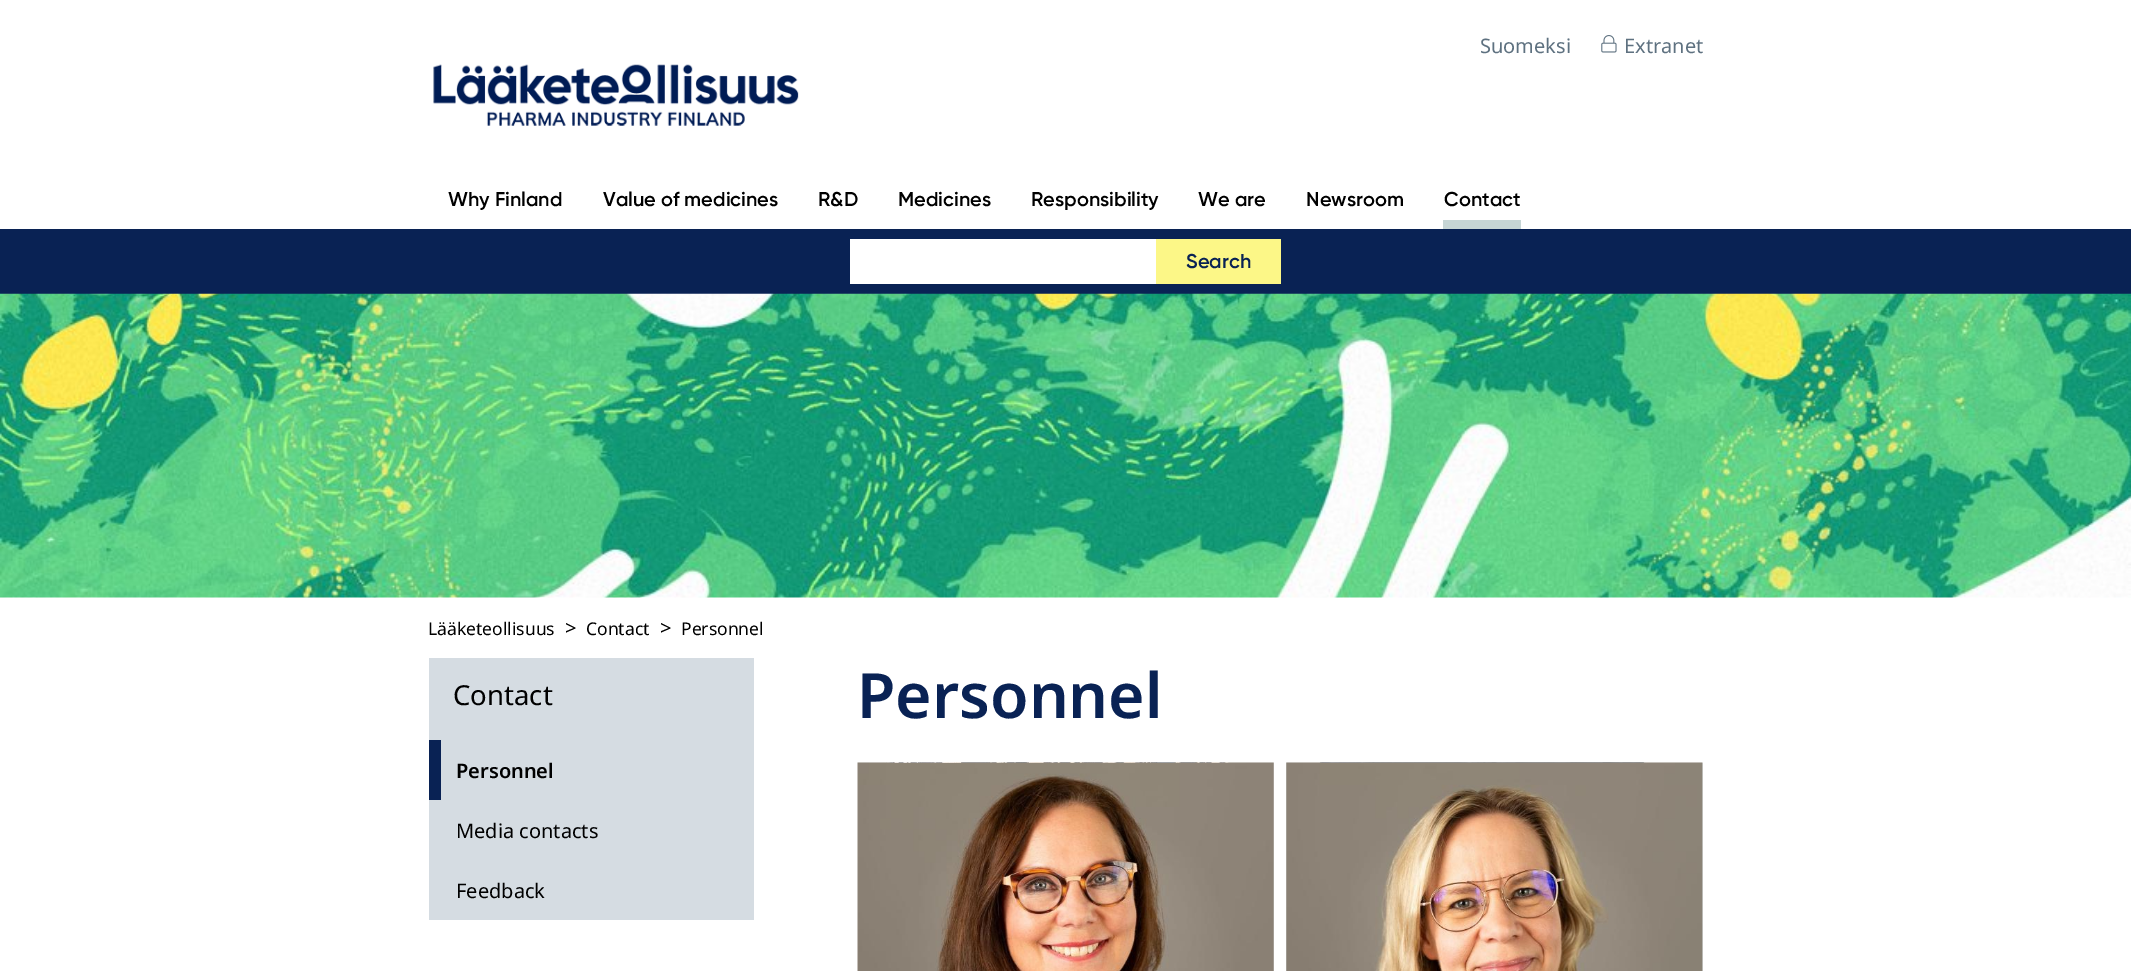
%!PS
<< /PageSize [2131 971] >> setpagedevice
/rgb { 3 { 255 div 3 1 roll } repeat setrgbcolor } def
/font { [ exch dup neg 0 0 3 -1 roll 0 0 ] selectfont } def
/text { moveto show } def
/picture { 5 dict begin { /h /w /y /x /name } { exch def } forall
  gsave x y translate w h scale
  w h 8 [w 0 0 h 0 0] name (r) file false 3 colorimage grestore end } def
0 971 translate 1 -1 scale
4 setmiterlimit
255 255 255 rgb
0 0 2131 971 rectfill
(img_01.rgb) 1601 35 16 18 picture
(img_02.rgb) 433 64 366 62 picture
198 213 213 rgb
1443 220 78 9 rectfill
9 34 84 rgb
0 229 2131 65 rectfill
255 255 255 rgb
850 239 306 45 rectfill
252 247 135 rgb
1156 239 125 45 rectfill
(img_03.rgb) 0 293 2131 305 picture
213 220 226 rgb
429 658 325 262 rectfill
9 34 84 rgb
429 740 12 60 rectfill
(img_04.rgb) 857 762 417 209 picture
236 241 244 rgb
1286 763 417 208 rectfill
(img_05.rgb) 1286 762 417 209 picture
/NotoSans-Regular 20 font
94 113 128 rgb
(Suomeksi) 1480 53 text
(Extranet) 1624 53 text
/Gilroy-Regular 20 font
0 0 0 rgb
(Why Finland) 448 206 text
(Value of medicines) 603 206 text
(R&D) 818 206 text
(Medicines) 898 206 text
(Responsibility) 1031 206 text
(We are) 1198 206 text
(Newsroom) 1306 206 text
(Contact) 1444 206 text
9 34 84 rgb
(Search) 1186 268 text
/NotoSans-Regular 17.5 font
0 0 0 rgb
(Lääketeollisuus) 428 635 text
/NotoSans-Regular 20 font
(>) 565 635 text
/NotoSans-Regular 17.5 font
(Contact) 586 635 text
/NotoSans-Regular 20 font
(>) 660 635 text
/NotoSans-Regular 17.5 font
(Personnel) 681 635 text
/NotoSans-Regular 27.5 font
(Contact) 453 705 text
/NotoSans-SemiBold 20 font
(Personnel) 456 778 text
/NotoSans-Regular 20 font
(Media contacts) 456 838 text
(Feedback) 456 898 text
/NotoSans-SemiBold 62.5 font
9 34 84 rgb
(Personnel) 857 718 text
showpage
